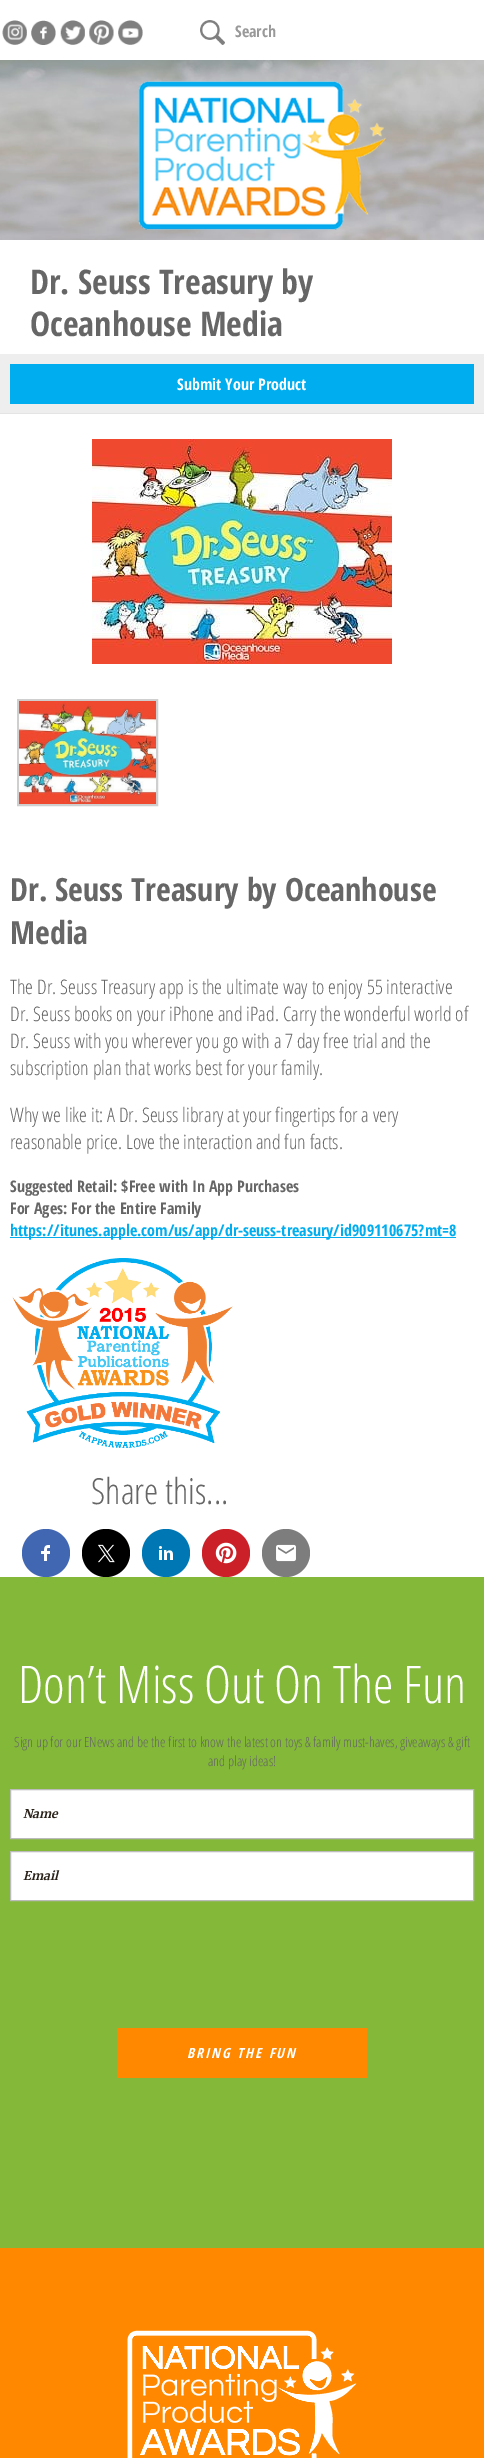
%!PS
<< /PageSize [484 2458] >> setpagedevice
/rgb { 3 { 255 div 3 1 roll } repeat setrgbcolor } def
/font { [ exch dup neg 0 0 3 -1 roll 0 0 ] selectfont } def
/text { moveto show } def
/circle { newpath 0 360 arc closepath } def
/picture { 5 dict begin { /h /w /y /x /name } { exch def } forall
  gsave x y translate w h scale
  w h 8 [w 0 0 h 0 0] name (r) file false 3 colorimage grestore end } def
0 2458 translate 1 -1 scale
4 setmiterlimit
255 255 255 rgb
0 0 484 2458 rectfill
(img_01.rgb) 2 20 25 25 picture
(img_02.rgb) 31 20 25 25 picture
(img_03.rgb) 60 20 25 25 picture
(img_04.rgb) 89 20 25 25 picture
(img_05.rgb) 118 20 25 25 picture
(img_06.rgb) 200 20 25 25 picture
(img_07.rgb) 0 60 484 180 picture
(img_08.rgb) 138 81 248 149 picture
238 238 238 rgb
0 354 484 59 rectfill
228 228 228 rgb
0 413 484 1 rectfill
0 173 239 rgb
10 364 464 40 rectfill
(img_09.rgb) 92 439 300 225 picture
207 207 207 rgb
2 setlinewidth
18 700 139 105 rectstroke
(img_10.rgb) 19 701 137 103 picture
0 173 239 rgb
10 1237 446 1 rectfill
(img_11.rgb) 12 1258 221 190 picture
66 103 178 rgb
46 1553 24 circle fill
(img_12.rgb) 41 1545 9 16 picture
0 0 0 rgb
106 1553 24 circle fill
(img_13.rgb) 98 1544 17 19 picture
0 119 181 rgb
166 1553 24 circle fill
(img_14.rgb) 159 1546 14 14 picture
203 32 39 rgb
226 1553 24 circle fill
(img_15.rgb) 215 1542 22 22 picture
125 125 125 rgb
286 1553 24 circle fill
(img_16.rgb) 276 1544 20 18 picture
131 184 56 rgb
0 1577 484 671 rectfill
255 255 255 rgb
10.5 1789.5 moveto 463 0 rlineto 0 49 rlineto -463 0 rlineto closepath gsave fill grestore
187 187 187 rgb
1 setlinewidth
stroke
255 255 255 rgb
10.5 1851.5 moveto 463 0 rlineto 0 49 rlineto -463 0 rlineto closepath gsave fill grestore
187 187 187 rgb
stroke
255 136 0 rgb
117 2028 250 50 rectfill
0 2248 484 210 rectfill
(img_17.rgb) 127 2330 230 128 picture
/OpenSansCondensed-Bold 16 font
153 153 153 rgb
(Search) 235 37 text
/OpenSansCondensed-Bold 34 font
102 102 102 rgb
(Dr. Seuss Treasury by) 30 294 text
(Oceanhouse Media) 30 336 text
/OpenSansCondensed-Bold 16 font
255 255 255 rgb
(Submit Your Product) 177 390 text
/OpenSansCondensed-Bold 32 font
102 102 102 rgb
(Dr. Seuss Treasury by Oceanhouse) 10 901 text
(Media) 10 944 text
/OpenSansCondensed-Light 20 font
(The Dr. Seuss Treasury app is the ultimate way to enjoy 55 interactive) 10 994 text
(Dr. Seuss books on your iPhone and iPad. Carry the wonderful world of) 10 1021 text
(Dr. Seuss with you wherever you go with a 7 day free trial and the) 10 1048 text
(subscription plan that works best for your family.) 10 1075 text
(Why we like it: A Dr. Seuss library at your fingertips for a very) 10 1122 text
(reasonable price. Love the interaction and fun facts.) 10 1149 text
/OpenSansCondensed-Bold 16 font
(Suggested Retail: $Free with In App Purchases) 10 1192 text
(For Ages: For the Entire Family) 10 1214 text
0 173 239 rgb
(https://itunes.apple.com/us/app/dr-seuss-treasury/id909110675?mt=8) 10 1236 text
/OpenSansCondensed-Light 36 font
102 102 102 rgb
(Share this...) 91 1504 text
/OpenSansCondensed-Light 52 font
255 255 255 rgb
(Don’t Miss Out On The Fun) 18 1703 text
/OpenSansCondensed-Light 14 font
102 102 102 rgb
(Sign up for our ENews and be the first to know the latest on toys & family must-haves, giveaways & gift) 14 1747 text
(and play ideas!) 208 1766 text
/Merriweather-BoldItalic 12 font
42 34 25 rgb
(Name) 23 1818 text
(Email) 23 1880 text
/OpenSansCondensed-BoldItalic 14 font
255 255 255 rgb
187 2058 moveto 2 0 (BRING THE FUN) ashow
showpage
